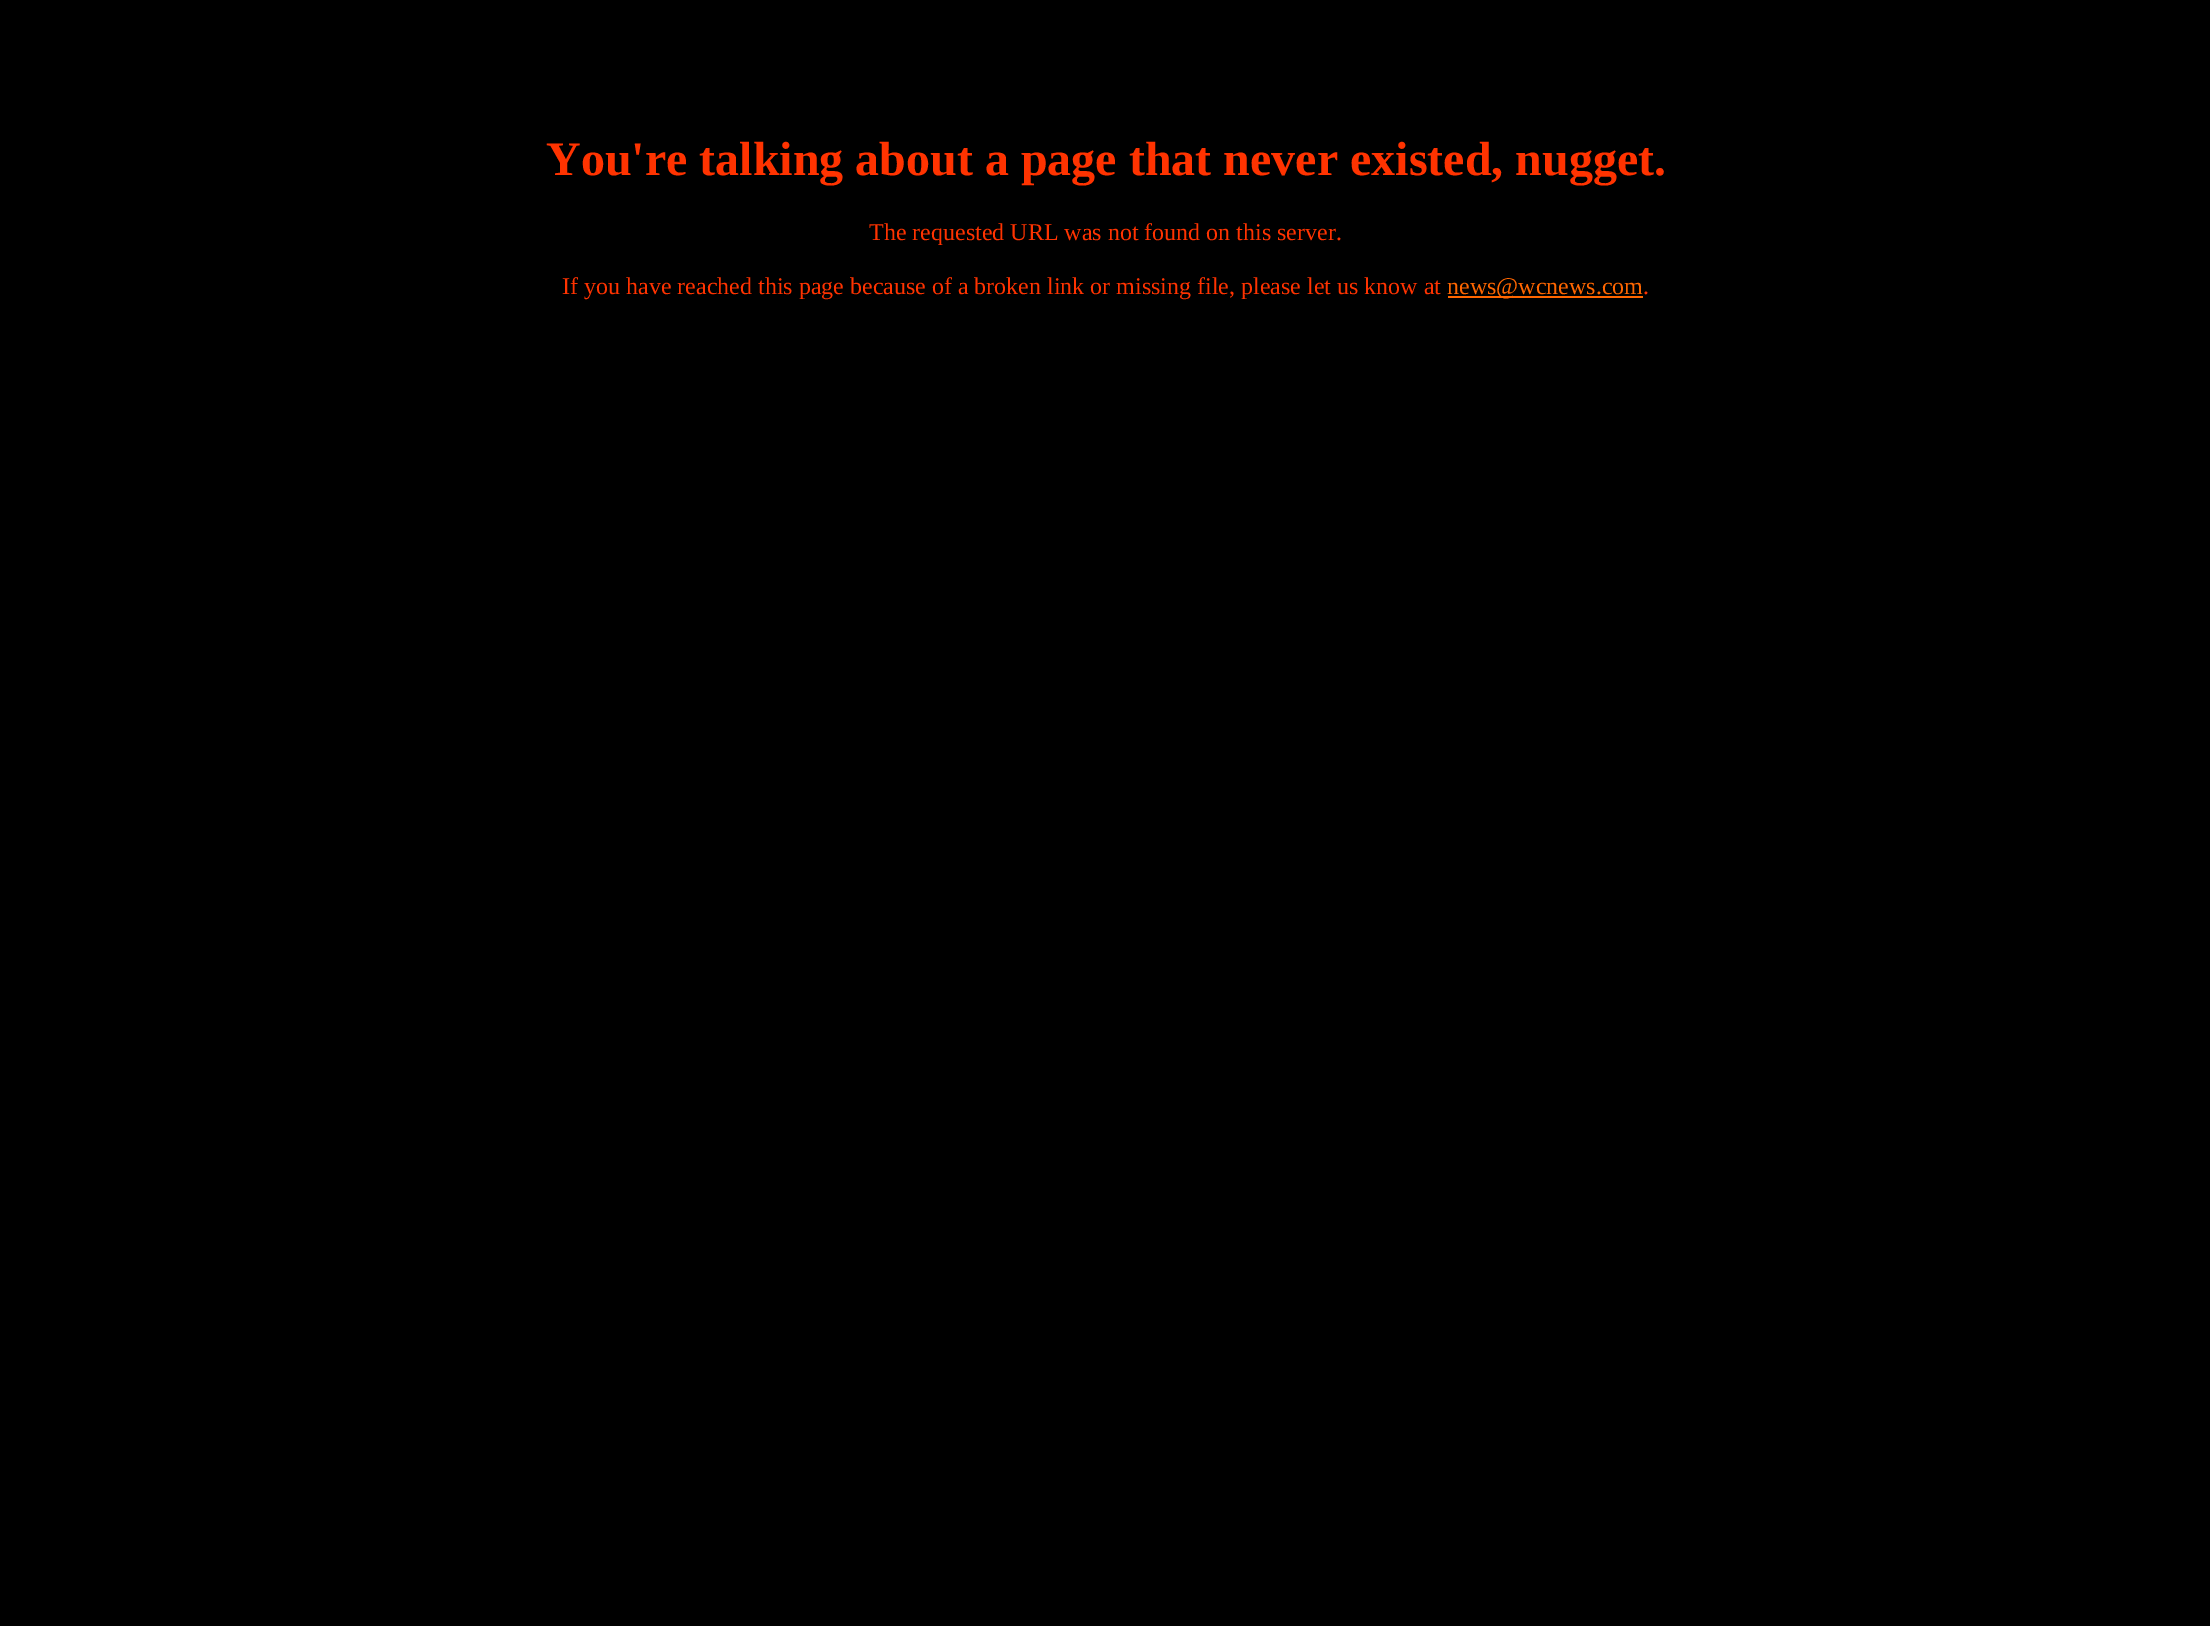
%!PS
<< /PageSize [2210 1626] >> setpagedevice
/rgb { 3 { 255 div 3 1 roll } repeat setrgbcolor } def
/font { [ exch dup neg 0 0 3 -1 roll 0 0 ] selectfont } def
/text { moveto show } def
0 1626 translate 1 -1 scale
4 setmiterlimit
0 0 0 rgb
0 0 2210 1626 rectfill
255 102 0 rgb
1448 296 195 2 rectfill
/LiberationSerif-Bold 48 font
255 51 0 rgb
(You're talking about a page that never existed, nugget.) 546 175 text
/LiberationSerif-Regular 24 font
(The requested URL was not found on this server.) 869 240 text
(If you have reached this page because of a broken link or missing file, please let us know at) 562 294 text
255 102 0 rgb
(news@wcnews.com) 1447 294 text
255 51 0 rgb
(.) 1643 294 text
showpage
